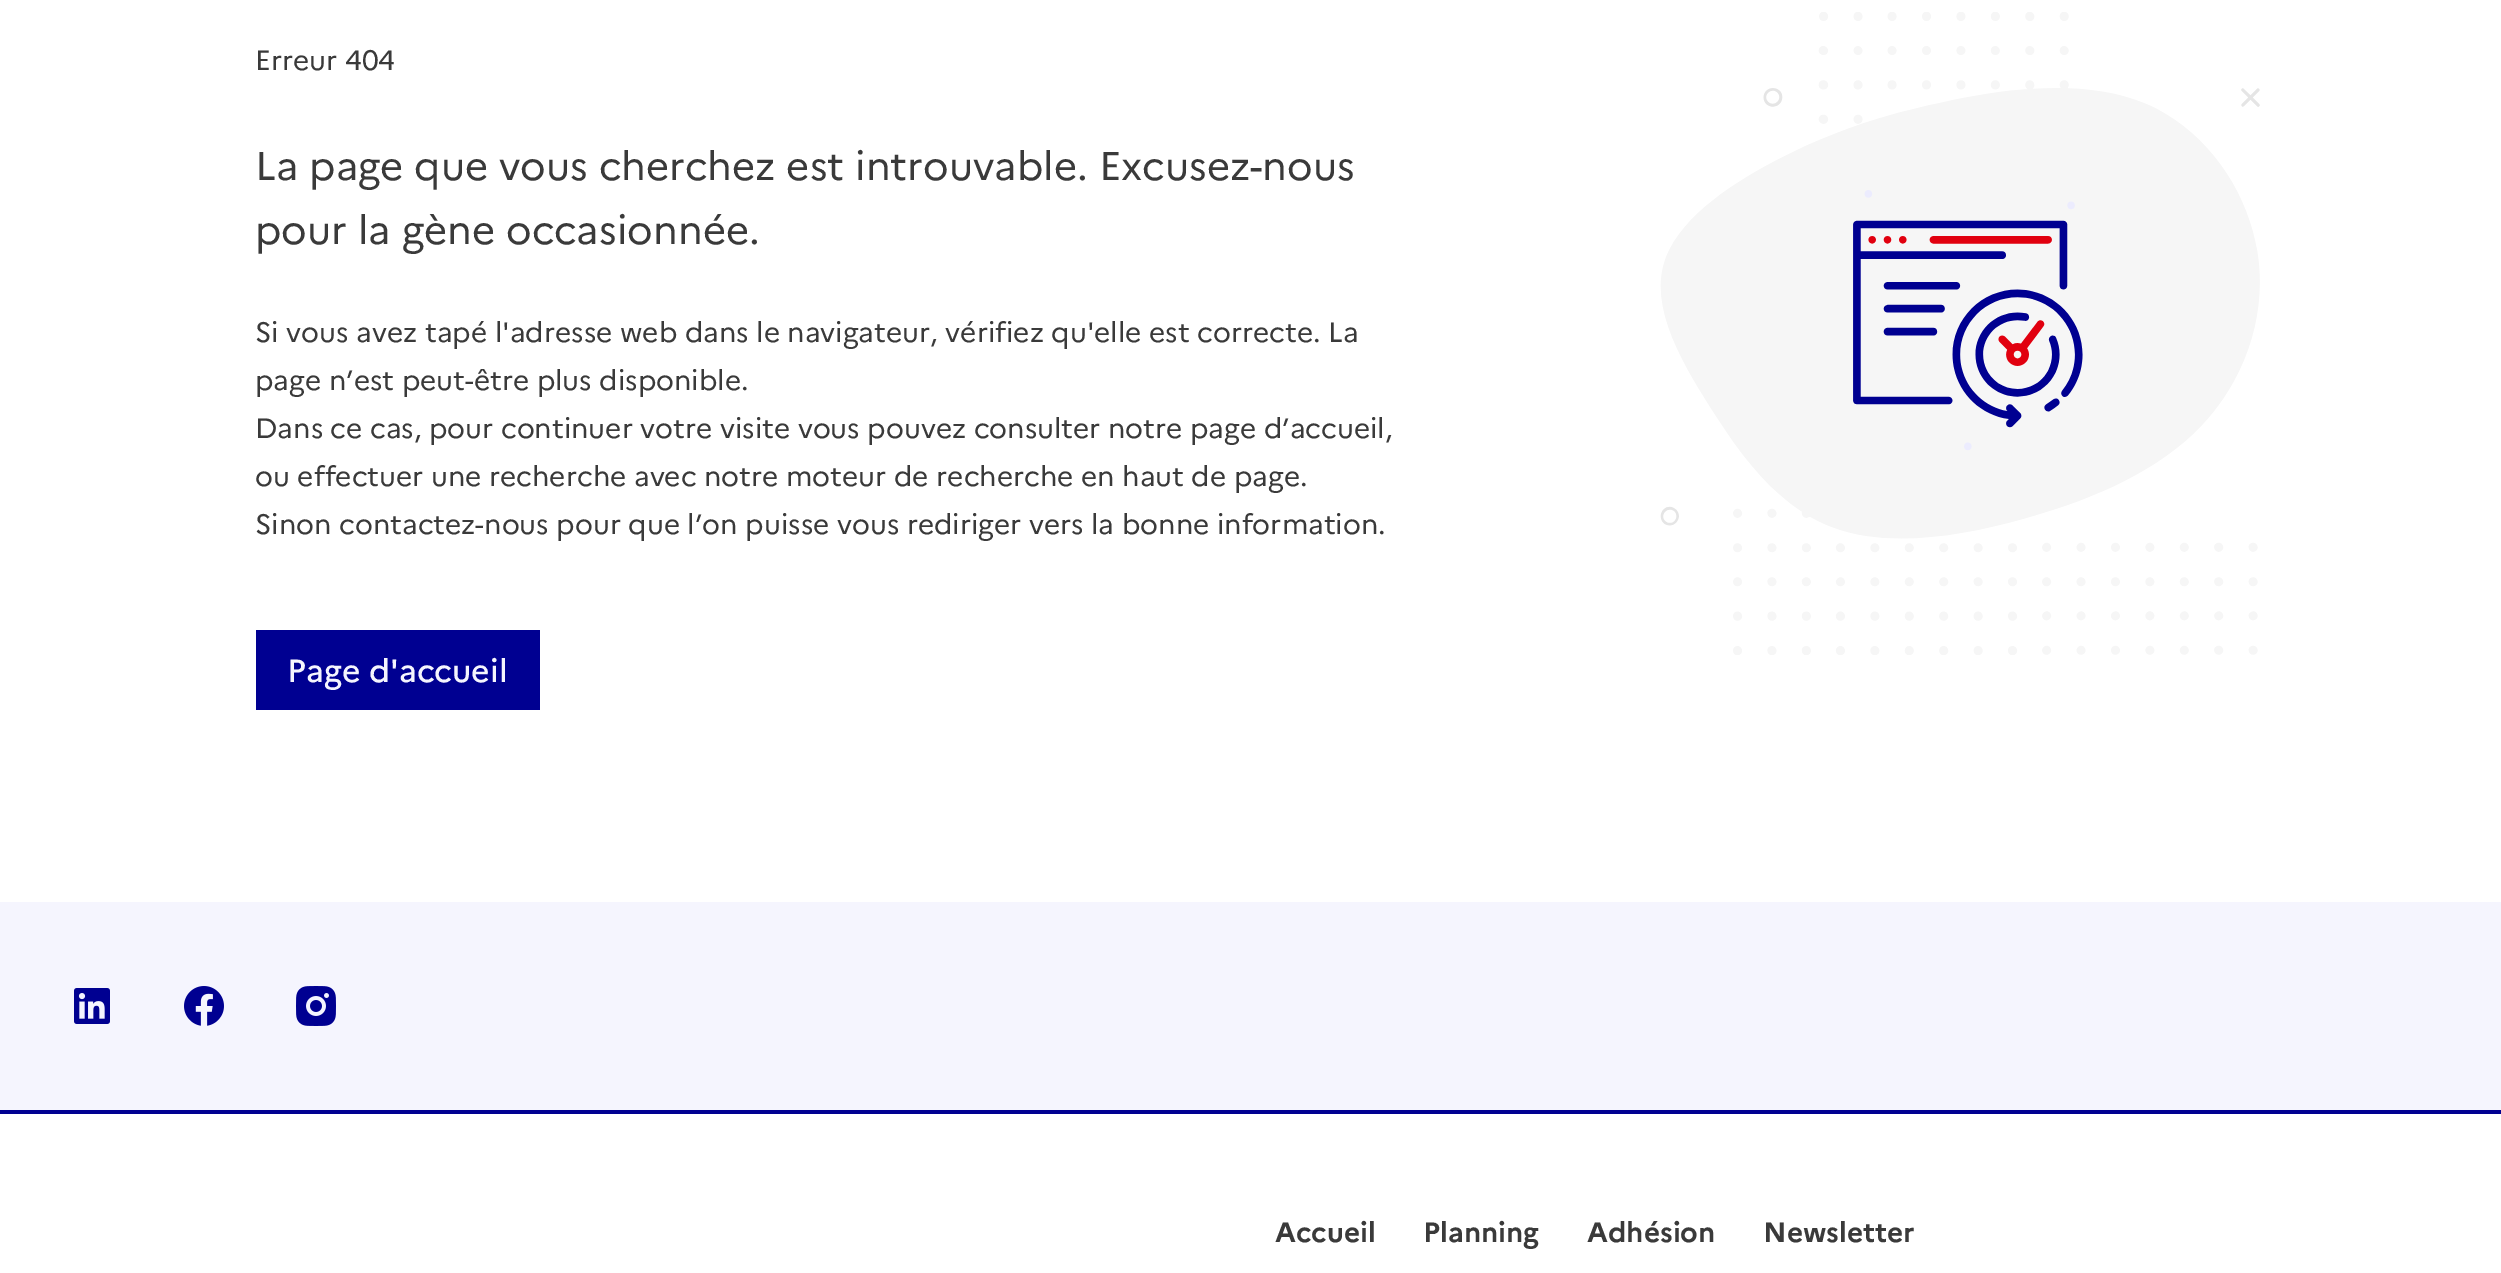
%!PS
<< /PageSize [2501 1273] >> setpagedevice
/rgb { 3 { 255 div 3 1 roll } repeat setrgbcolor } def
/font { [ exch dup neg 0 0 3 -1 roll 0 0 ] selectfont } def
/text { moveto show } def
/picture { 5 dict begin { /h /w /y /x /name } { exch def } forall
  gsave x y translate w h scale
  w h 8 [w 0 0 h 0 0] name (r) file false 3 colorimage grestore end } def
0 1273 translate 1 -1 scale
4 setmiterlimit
255 255 255 rgb
0 0 2501 1273 rectfill
0 0 145 rgb
256 630 284 80 rectfill
(img_01.rgb) 1660 12 600 643 picture
245 245 254 rgb
0 902 2501 208 rectfill
(img_02.rgb) 74 988 36 36 picture
(img_03.rgb) 184 986 40 40 picture
(img_04.rgb) 296 986 40 40 picture
0 0 145 rgb
0 1110 2501 4 rectfill
/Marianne-Regular 28 font
58 58 58 rgb
(Erreur 404) 255 70 text
/Marianne-Regular 40 font
(La page que vous cherchez est introuvable. Excusez-nous) 255 180 text
(pour la gène occasionnée.) 255 244 text
/Marianne-Regular 28 font
(Si vous avez tapé l'adresse web dans le navigateur, vérifiez qu'elle est correcte. La) 255 342 text
(page n’est peut-être plus disponible.) 255 390 text
(Dans ce cas, pour continuer votre visite vous pouvez consulter notre page d’accueil,) 255 438 text
(ou effectuer une recherche avec notre moteur de recherche en haut de page.) 255 486 text
(Sinon contactez-nous pour que l’on puisse vous rediriger vers la bonne information.) 255 534 text
/Marianne-Medium 32 font
245 245 254 rgb
(Page d'accueil) 287 682 text
/Marianne-Bold 28 font
58 58 58 rgb
(Accueil) 1275 1242 text
(Planning) 1423 1242 text
(Adhésion) 1587 1242 text
(Newsletter) 1763 1242 text
showpage
